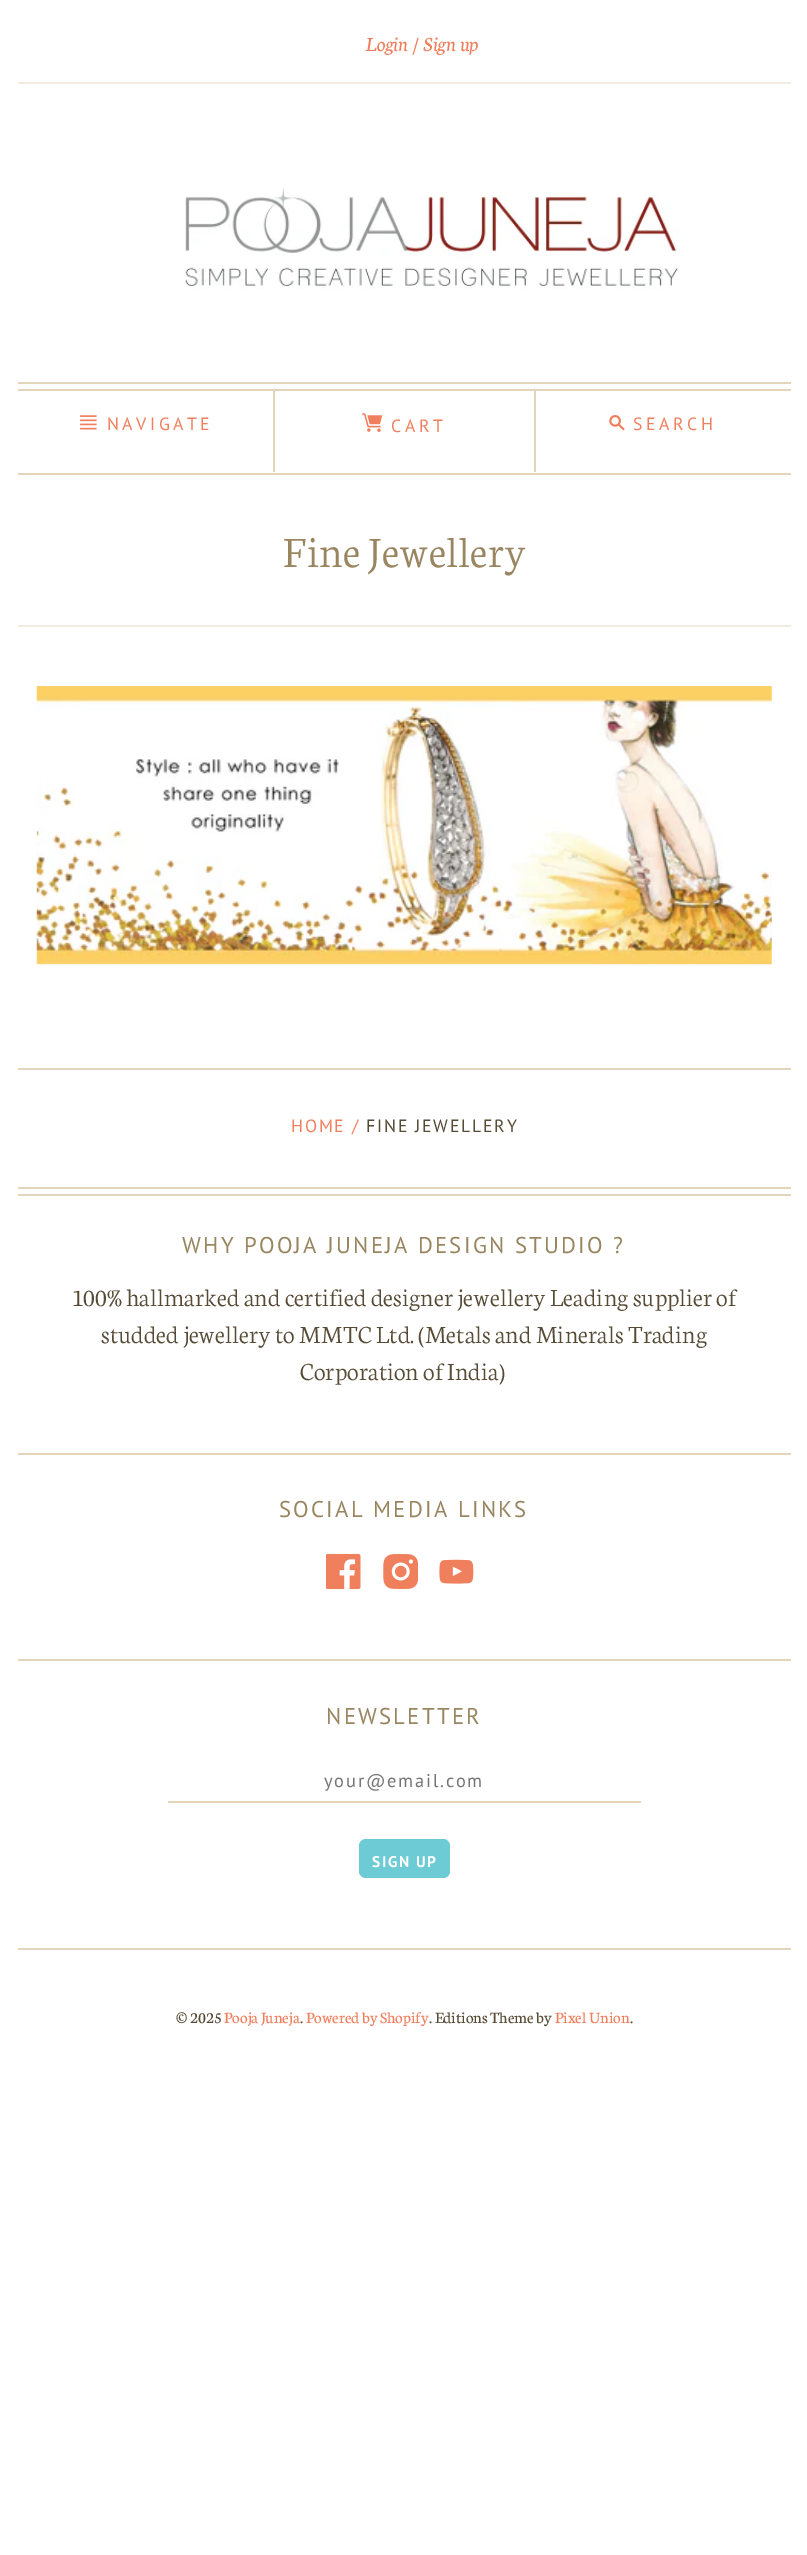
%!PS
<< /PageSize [807 2555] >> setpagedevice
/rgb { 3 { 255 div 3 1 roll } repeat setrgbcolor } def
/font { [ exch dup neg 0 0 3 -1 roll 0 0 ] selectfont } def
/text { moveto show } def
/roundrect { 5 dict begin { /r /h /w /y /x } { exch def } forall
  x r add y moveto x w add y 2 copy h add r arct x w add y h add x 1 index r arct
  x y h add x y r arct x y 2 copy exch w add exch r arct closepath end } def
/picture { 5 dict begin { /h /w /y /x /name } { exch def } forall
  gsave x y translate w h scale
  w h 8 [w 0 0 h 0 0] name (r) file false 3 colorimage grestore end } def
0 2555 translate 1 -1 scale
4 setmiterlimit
255 255 255 rgb
0 0 807 2555 rectfill
242 236 224 rgb
18 82 773 2 rectfill
(img_01.rgb) 185 187 496 102 picture
227 213 186 rgb
18 389 773 2 rectfill
18 382 773 2 rectfill
275 388 moveto 0 84 rlineto -2 0 rlineto 0 -82 rlineto closepath fill
(img_02.rgb) 80 415 17 15 picture
(img_03.rgb) 362 413 21 19 picture
534 472 moveto 0 -84 rlineto 2 2 rlineto 0 82 rlineto closepath fill
(img_04.rgb) 609 415 16 16 picture
18 473 773 2 rectfill
242 236 224 rgb
18 625 773 2 rectfill
(img_05.rgb) 36 686 736 279 picture
227 213 186 rgb
18 1068 773 2 rectfill
18 1187 773 2 rectfill
18 1194 773 2 rectfill
18 1453 773 2 rectfill
(img_06.rgb) 326 1554 35 35 picture
(img_07.rgb) 383 1554 35 35 picture
(img_08.rgb) 439 1559 35 25 picture
18 1659 773 2 rectfill
168 1801 473 2 rectfill
109 203 213 rgb
359 1839 91 39 7 roundrect fill
227 213 186 rgb
18 1948 773 2 rectfill
/Neuton-Italic 21.5 font
240 127 93 rgb
(Login / Sign up) 365 51 text
/PTSans-Regular 17.75 font
107 430 moveto 3.5 0 (NAVIGATE) ashow
391 432 moveto 3.5 0 (CART) ashow
633 430 moveto 3.5 0 (SEARCH) ashow
/Neuton-Light 46 font
153 133 95 rgb
(Fine Jewellery) 283 567 text
/PTSans-Regular 17.75 font
240 127 93 rgb
291 1132 moveto 1.75 0 (HOME /) ashow
87 75 54 rgb
366 1132 moveto 1.75 0 (FINE JEWELLERY) ashow
/PTSans-Regular 22.75 font
153 133 95 rgb
182 1253 moveto 2.25 0 (WHY POOJA JUNEJA DESIGN STUDIO ?) ashow
/Neuton-Light 26.25 font
87 75 54 rgb
(100% hallmarked and certified designer jewellery Leading supplier of) 73 1306 text
(studded jewellery to MMTC Ltd. \(Metals and Minerals Trading) 101 1343 text
(Corporation of India\)) 300 1380 text
/PTSans-Regular 22.75 font
153 133 95 rgb
279 1517 moveto 2.25 0 (SOCIAL MEDIA LINKS) ashow
326 1724 moveto 2.25 0 (NEWSLETTER) ashow
/PTSans-Regular 18.4 font
117 117 117 rgb
324 1787 moveto 1.8 0 (your@email.com) ashow
/PTSans-Bold 15.5 font
255 255 255 rgb
372 1867 moveto 1.5 0 (SIGN UP) ashow
/Neuton-Regular 16.75 font
87 75 54 rgb
(© 2025) 176 2023 text
240 127 93 rgb
(Pooja Juneja) 224 2023 text
87 75 54 rgb
(.) 300 2023 text
240 127 93 rgb
(Powered by Shopify) 306 2023 text
87 75 54 rgb
(. Editions Theme by) 429 2023 text
240 127 93 rgb
(Pixel Union) 555 2023 text
87 75 54 rgb
(.) 630 2023 text
showpage
